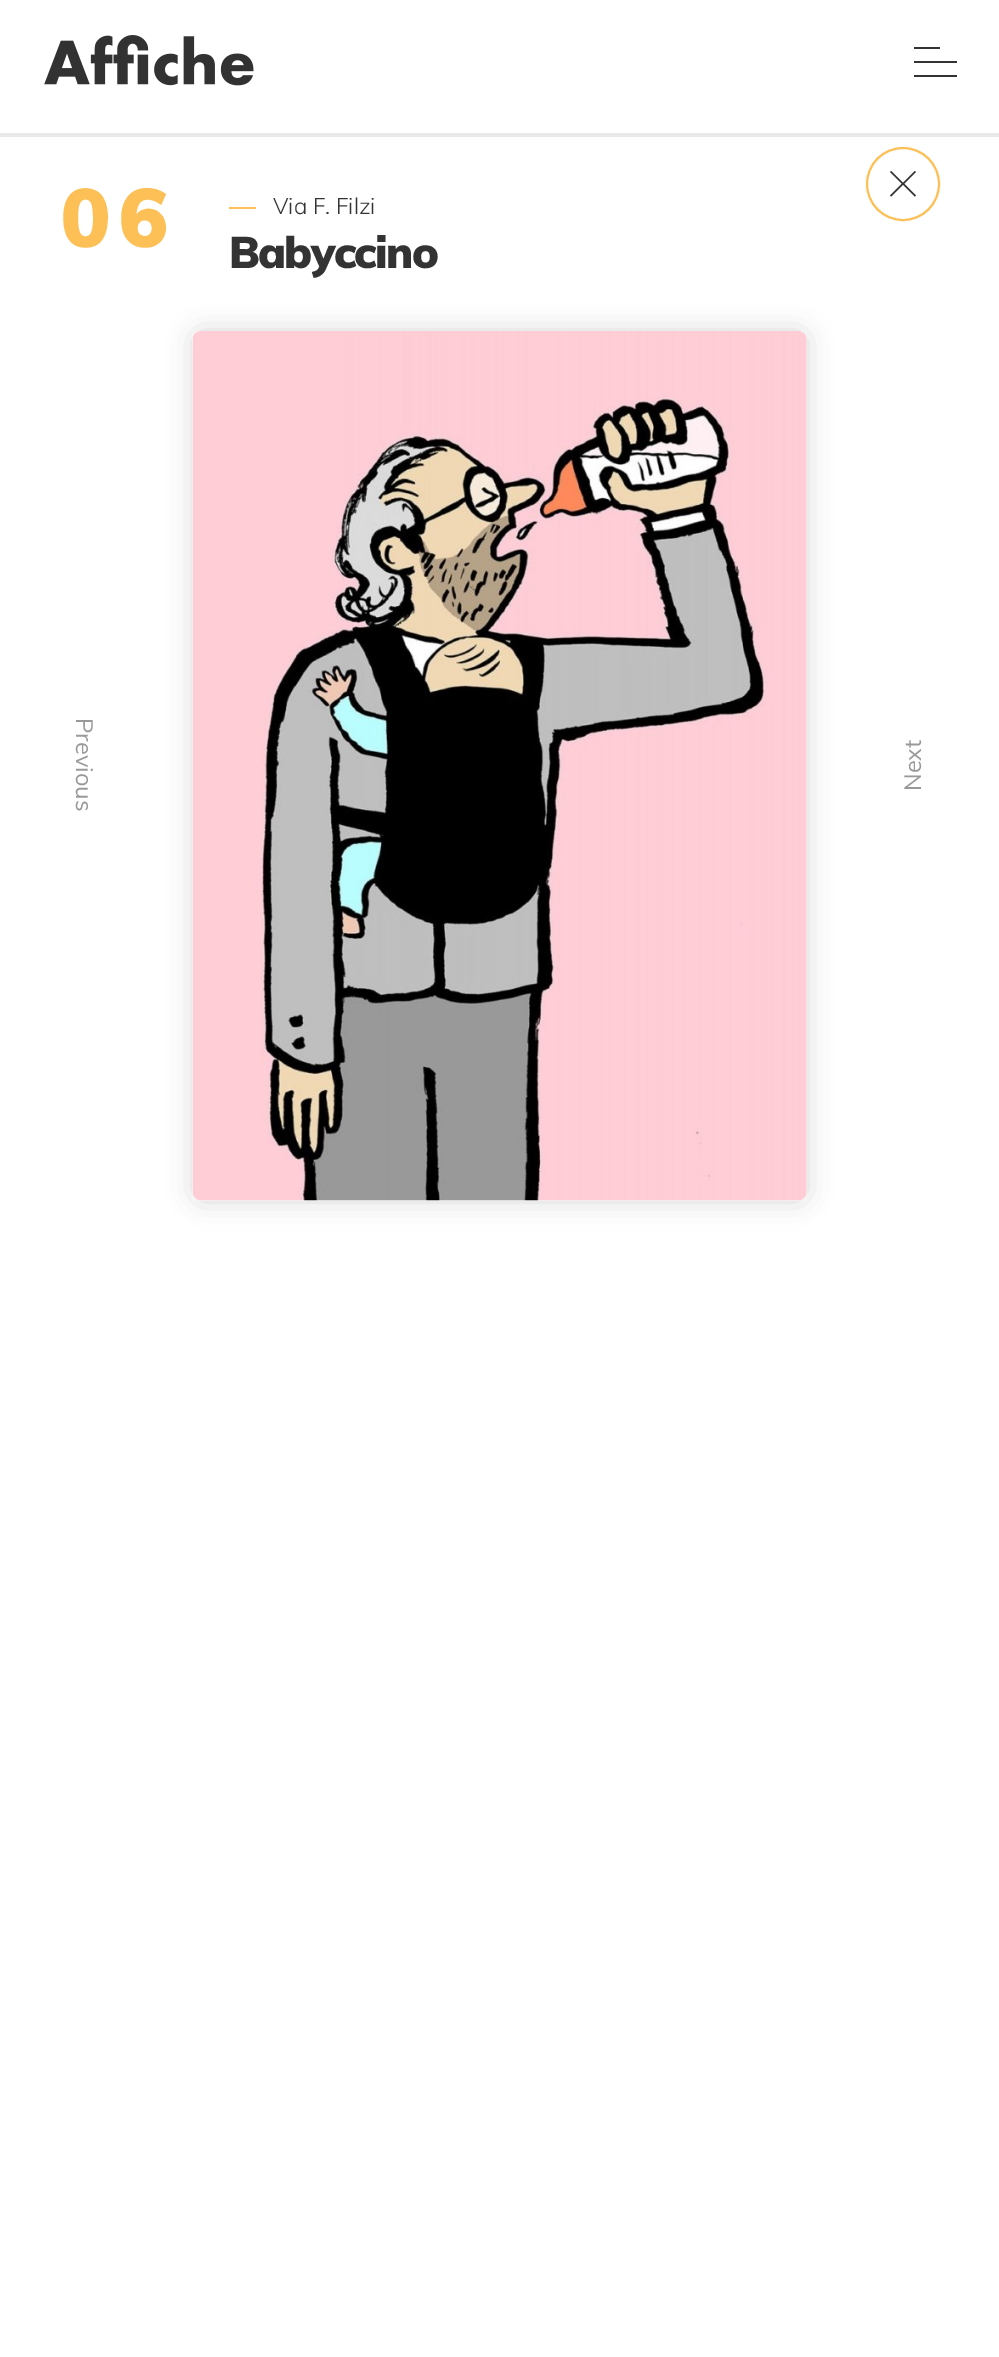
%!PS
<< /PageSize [999 2357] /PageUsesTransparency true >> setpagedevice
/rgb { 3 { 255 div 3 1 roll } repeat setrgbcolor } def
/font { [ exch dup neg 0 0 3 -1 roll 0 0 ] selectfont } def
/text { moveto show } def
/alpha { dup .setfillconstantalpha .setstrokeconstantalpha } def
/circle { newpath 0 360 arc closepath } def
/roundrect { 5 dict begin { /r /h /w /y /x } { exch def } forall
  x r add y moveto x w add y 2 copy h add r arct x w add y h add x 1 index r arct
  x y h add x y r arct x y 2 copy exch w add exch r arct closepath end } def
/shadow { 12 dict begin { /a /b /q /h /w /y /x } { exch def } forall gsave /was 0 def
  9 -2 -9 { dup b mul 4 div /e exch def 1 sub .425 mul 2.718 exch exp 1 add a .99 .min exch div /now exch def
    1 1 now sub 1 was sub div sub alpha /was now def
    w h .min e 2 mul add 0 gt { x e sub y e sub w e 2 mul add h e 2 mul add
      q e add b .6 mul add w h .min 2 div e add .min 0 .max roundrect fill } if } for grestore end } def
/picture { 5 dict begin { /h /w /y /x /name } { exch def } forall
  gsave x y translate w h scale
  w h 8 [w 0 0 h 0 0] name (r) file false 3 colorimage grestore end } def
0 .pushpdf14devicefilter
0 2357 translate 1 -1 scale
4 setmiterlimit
255 255 255 rgb
0 0 999 2357 rectfill
234 234 234 rgb
0 133 999 4 rectfill
(img_01.rgb) 44 35 210 51 picture
51 51 51 rgb
914 61 43 2 rectfill
914 47 26 2 rectfill
914 75 43 2 rectfill
252 192 86 rgb
229 207 27 2 rectfill
2 setlinewidth
903 184 36 circle stroke
51 51 51 rgb
891 171 moveto 25 24.5 rlineto -1 1 rlineto -25 -24.5 rlineto closepath fill
890 195.5 moveto 25 -24.5 rlineto 1 1 rlineto -25 24.5 rlineto closepath fill
0 0 0 rgb
193 331 614 870 9 13 0.15 shadow
(img_02.rgb) 192 331 615 870 picture
/Muli-Black 82 font
252 192 86 rgb
61 247 moveto 9 0 (06) ashow
/Muli-Light 22.5 font
51 51 51 rgb
(Via F. Filzi) 273 214 text
/Muli-Black 43.75 font
229 268 moveto -1.75 0 (Babyccino) ashow
/Muli-Regular 23.5 font
153 153 153 rgb
gsave 76 718 translate 90 rotate 0 0 moveto (Previous) show grestore
gsave 921 791 translate -90 rotate 0 0 moveto (Next) show grestore
.poppdf14devicefilter showpage
